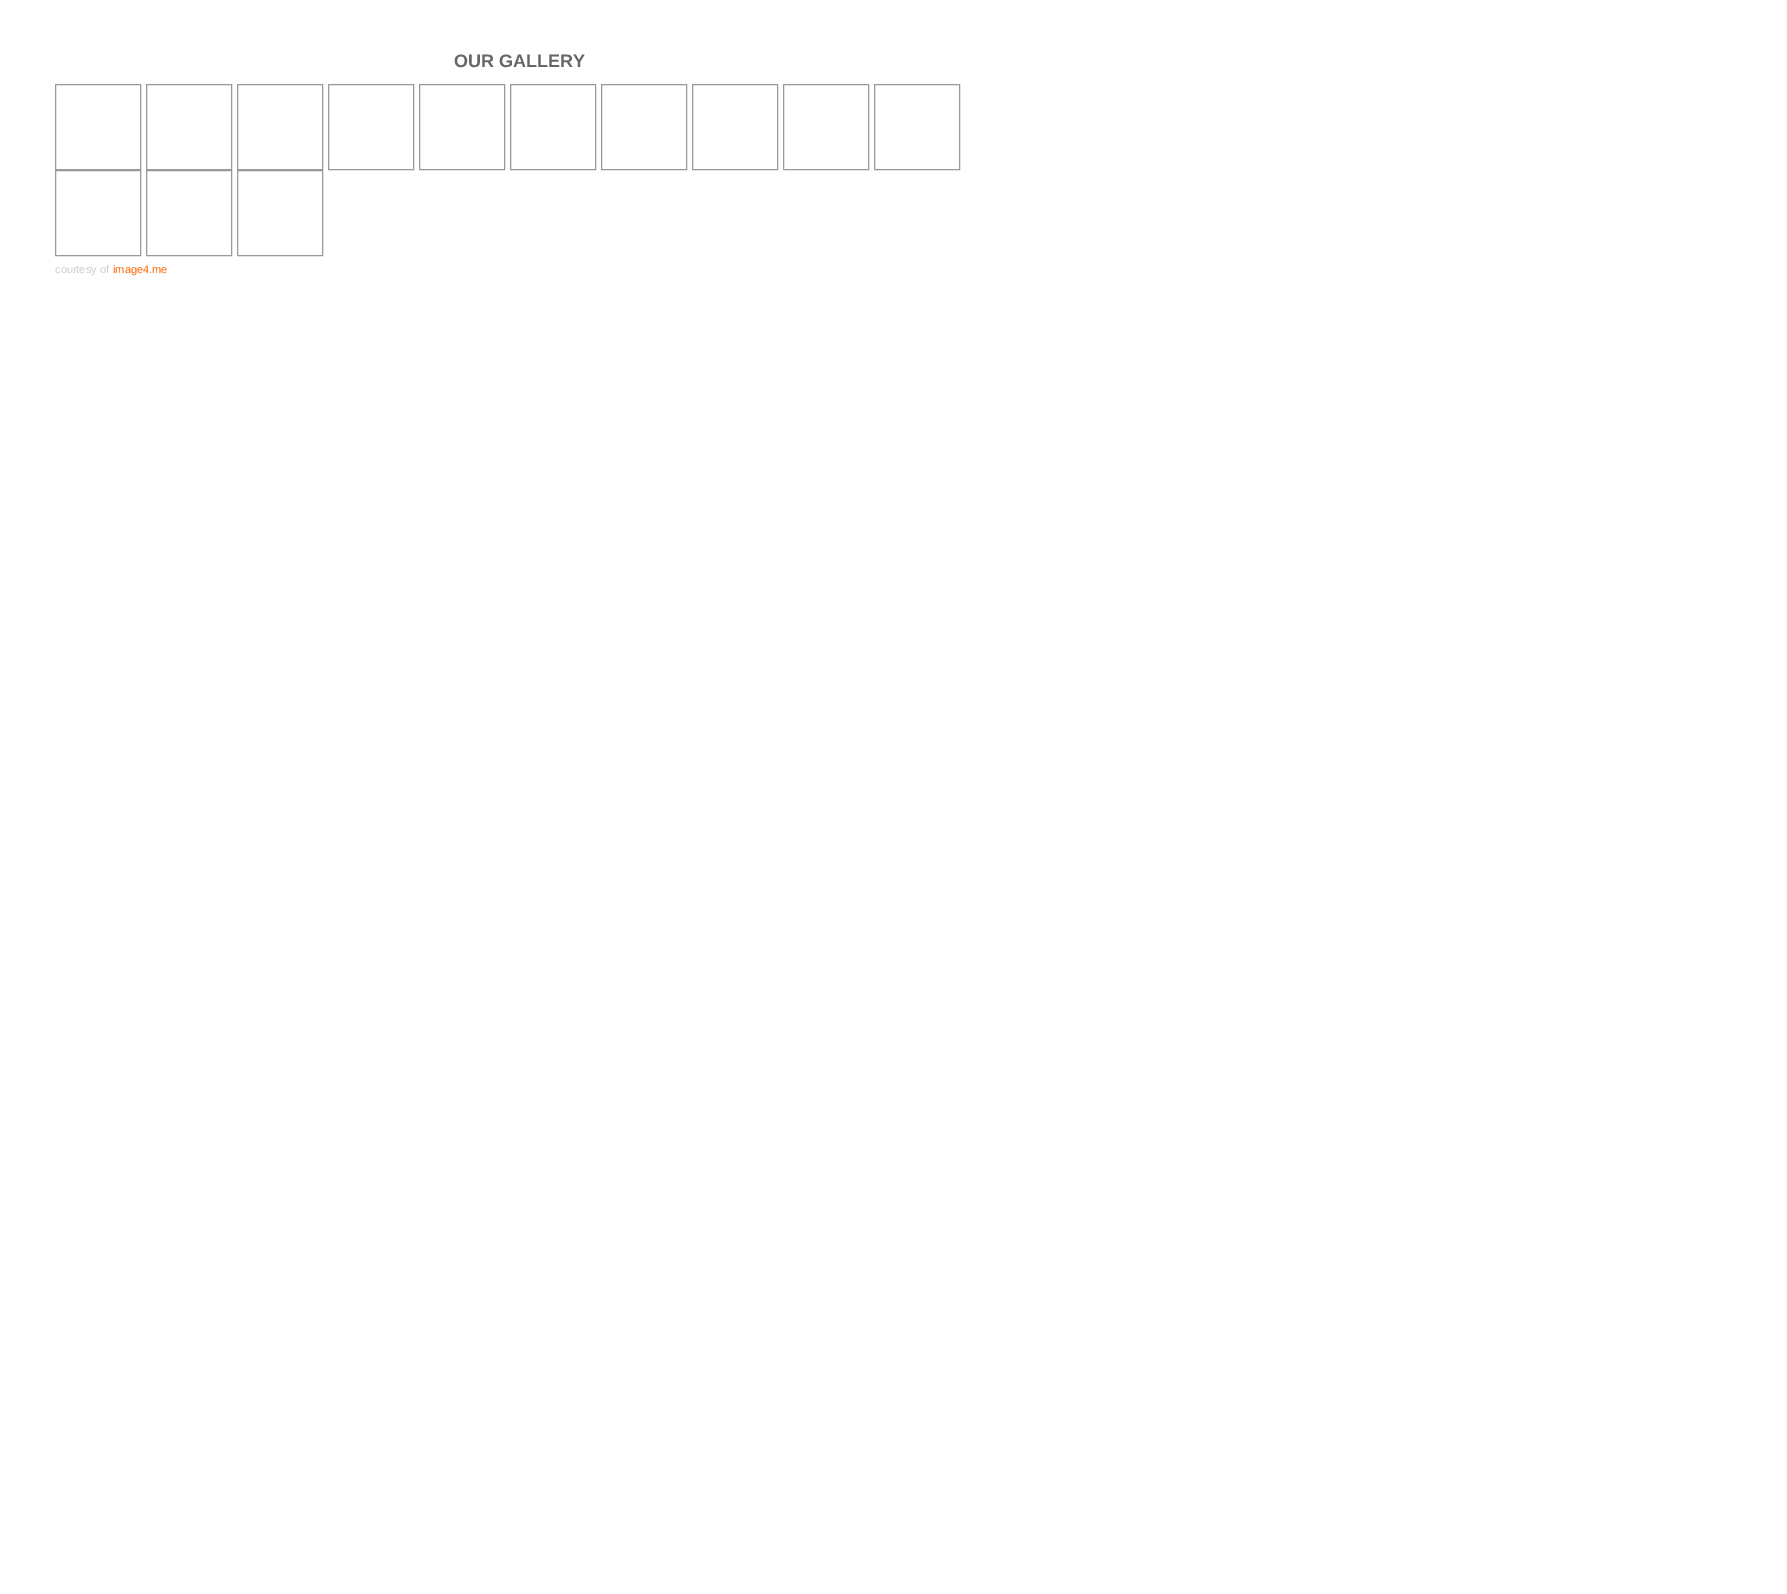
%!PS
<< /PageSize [1787 1594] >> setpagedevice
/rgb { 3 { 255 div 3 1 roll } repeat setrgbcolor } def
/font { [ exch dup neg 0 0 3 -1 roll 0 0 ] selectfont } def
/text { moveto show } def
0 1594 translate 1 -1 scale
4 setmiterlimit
255 255 255 rgb
0 0 1787 1594 rectfill
153 153 153 rgb
55.5 84.5 85 85 rectstroke
146.5 84.5 85 85 rectstroke
237.5 84.5 85 85 rectstroke
328.5 84.5 85 85 rectstroke
419.5 84.5 85 85 rectstroke
510.5 84.5 85 85 rectstroke
601.5 84.5 85 85 rectstroke
692.5 84.5 85 85 rectstroke
783.5 84.5 85 85 rectstroke
874.5 84.5 85 85 rectstroke
55.5 170.5 85 85 rectstroke
146.5 170.5 85 85 rectstroke
237.5 170.5 85 85 rectstroke
/LiberationSans-Bold 18 font
102 102 102 rgb
(OUR GALLERY) 454 67 text
/LiberationSans-Regular 11 font
204 204 204 rgb
(courtesy of) 55 273 text
255 102 0 rgb
(image4.me) 113 273 text
showpage
